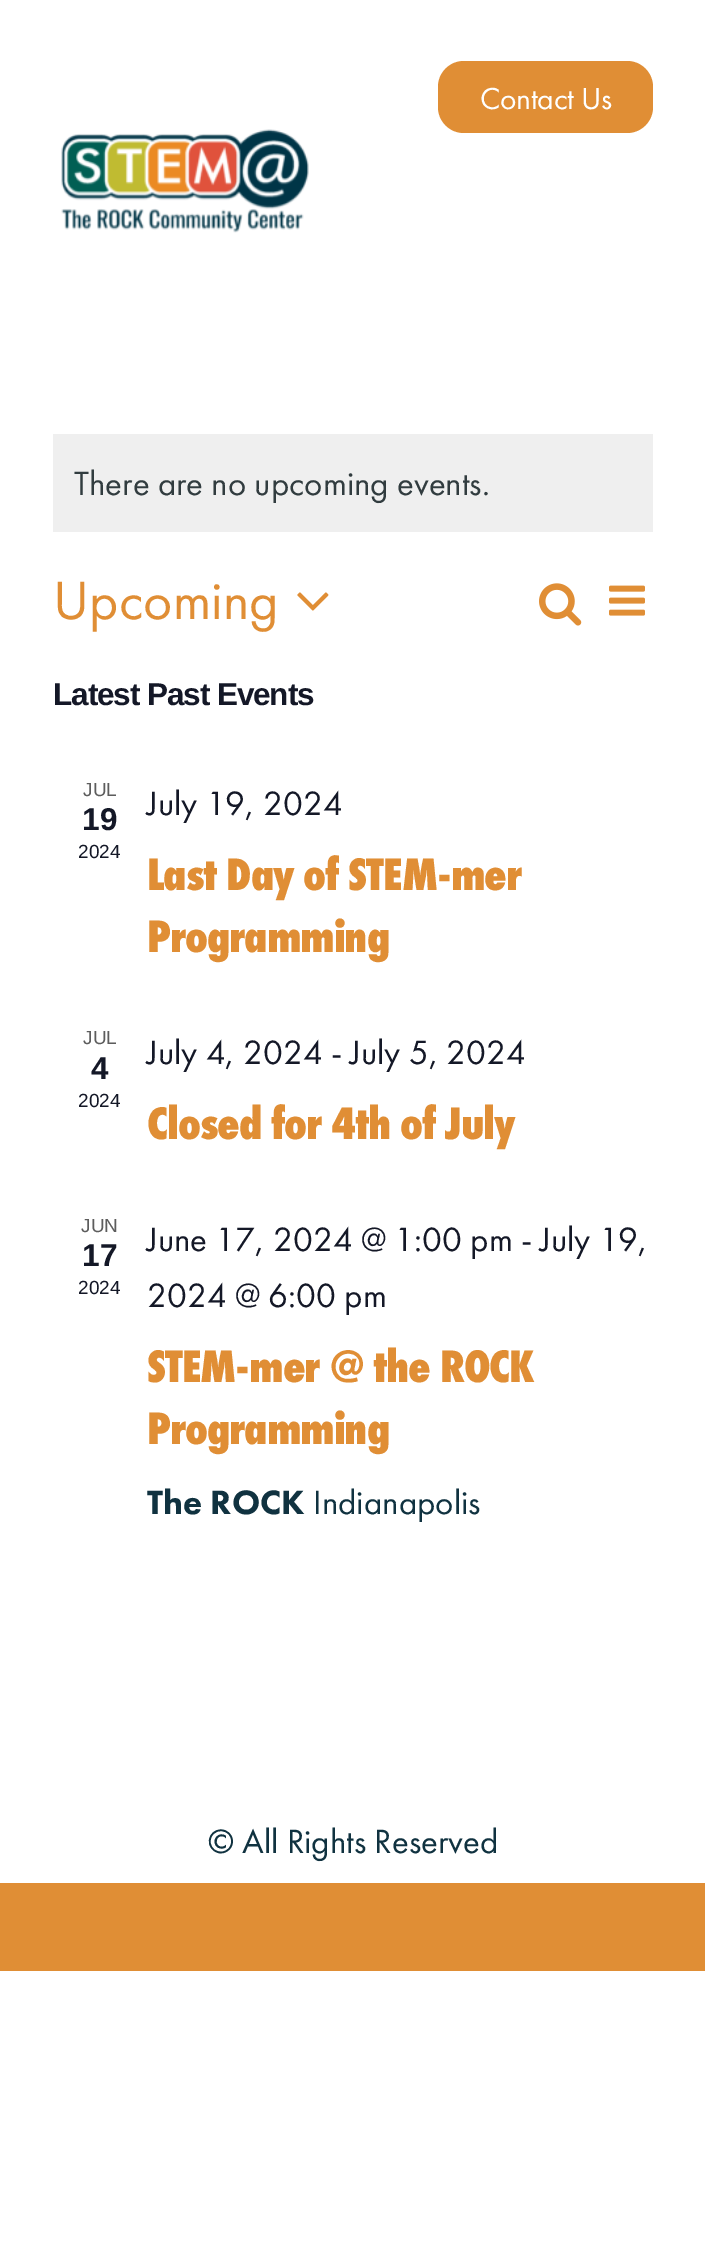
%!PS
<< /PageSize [705 2253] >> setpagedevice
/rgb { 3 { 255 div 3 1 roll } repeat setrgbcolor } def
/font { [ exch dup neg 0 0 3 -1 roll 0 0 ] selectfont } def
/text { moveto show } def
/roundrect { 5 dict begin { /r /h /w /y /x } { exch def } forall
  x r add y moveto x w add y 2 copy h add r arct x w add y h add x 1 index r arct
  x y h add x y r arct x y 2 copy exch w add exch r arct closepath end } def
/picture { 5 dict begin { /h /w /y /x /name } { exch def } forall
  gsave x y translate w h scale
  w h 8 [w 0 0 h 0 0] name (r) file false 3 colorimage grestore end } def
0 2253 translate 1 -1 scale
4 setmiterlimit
255 255 255 rgb
0 0 705 2253 rectfill
224 142 53 rgb
438 61 215 72 26 roundrect fill
(img_01.rgb) 61 129 248 104 picture
239 239 239 rgb
53 434 600 98 rectfill
(img_02.rgb) 297 592 32 19 picture
(img_03.rgb) 539 583 43 43 picture
(img_04.rgb) 609 585 36 31 picture
224 142 53 rgb
0 1883 705 88 rectfill
/FuturaPT-Regular 31.5 font
255 255 255 rgb
480 109 moveto -0.25 0 (Contact Us) ashow
/FuturaPT-Regular 35 font
49 60 63 rgb
(There are no upcoming events.) 74 495 text
/FuturaPT-Regular 56 font
224 142 53 rgb
(Upcoming) 53 619 text
/LiberationSans-Bold 31.5 font
20 24 39 rgb
53 705 moveto -1.1 0 (Latest Past Events) ashow
/LiberationSans-Regular 19 font
93 93 93 rgb
(JUL) 83 796 text
/LiberationSans-Bold 31.5 font
20 24 39 rgb
(19) 82 830 text
/LiberationSans-Regular 19 font
(2024) 78 858 text
/FuturaPT-Regular 35 font
(July 19, 2024) 147 815 text
/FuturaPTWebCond-ExtraBold 47.25 font
224 142 53 rgb
147 890 moveto -1.1 0 (Last Day of STEM-mer) ashow
147 952 moveto -1.1 0 (Programming) ashow
/LiberationSans-Regular 19 font
93 93 93 rgb
(JUL) 83 1044 text
/LiberationSans-Bold 31.5 font
20 24 39 rgb
(4) 91 1079 text
/LiberationSans-Regular 19 font
(2024) 78 1107 text
/FuturaPT-Regular 35 font
(July 4, 2024 - July 5, 2024) 147 1064 text
/FuturaPTWebCond-ExtraBold 47.25 font
224 142 53 rgb
147 1139 moveto -1.1 0 (Closed for 4th of July) ashow
/LiberationSans-Regular 19 font
93 93 93 rgb
(JUN) 81 1232 text
/LiberationSans-Bold 31.5 font
20 24 39 rgb
(17) 82 1266 text
/LiberationSans-Regular 19 font
(2024) 78 1294 text
/FuturaPT-Regular 35 font
(June 17, 2024 @ 1:00 pm - July 19,) 147 1251 text
(2024 @ 6:00 pm) 147 1307 text
/FuturaPTWebCond-ExtraBold 47.25 font
224 142 53 rgb
147 1382 moveto -1.1 0 (STEM-mer @ the ROCK) ashow
147 1444 moveto -1.1 0 (Programming) ashow
/FuturaPT-Black 35 font
16 50 64 rgb
(The ROCK) 147 1514 text
/FuturaPT-Regular 35 font
(Indianapolis) 313 1514 text
(© All Rights Reserved) 208 1853 text
showpage
